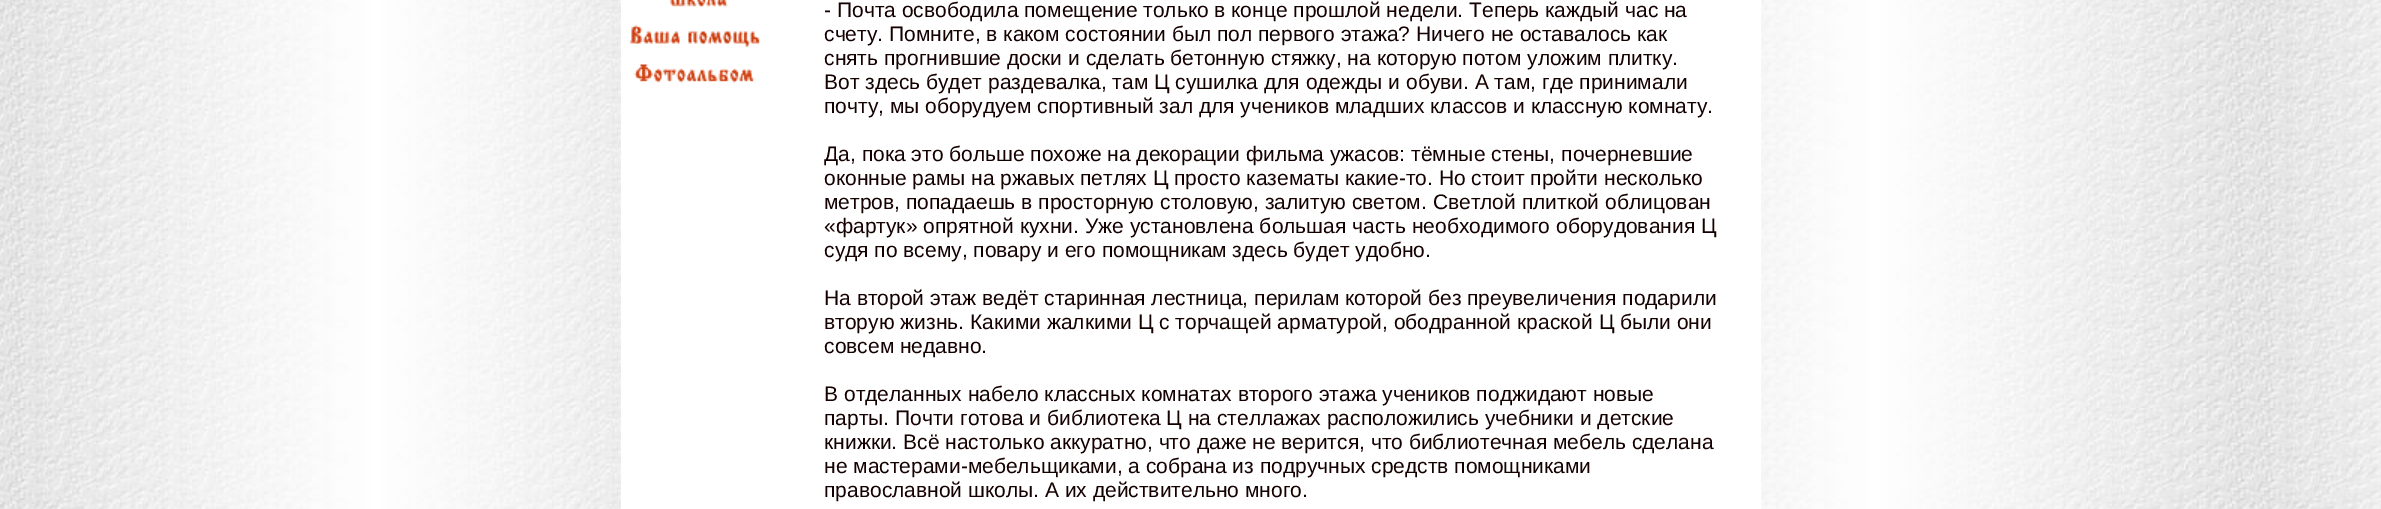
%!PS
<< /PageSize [2381 509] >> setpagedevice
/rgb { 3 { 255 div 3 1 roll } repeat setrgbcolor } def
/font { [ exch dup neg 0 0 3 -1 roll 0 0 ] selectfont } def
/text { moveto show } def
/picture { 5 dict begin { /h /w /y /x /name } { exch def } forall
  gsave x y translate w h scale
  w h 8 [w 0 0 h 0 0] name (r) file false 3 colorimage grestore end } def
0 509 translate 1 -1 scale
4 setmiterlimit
255 255 255 rgb
0 0 2381 509 rectfill
(img_01.rgb) 0 0 2381 509 picture
621 0 1140 509 rectfill
(img_02.rgb) 670 0 58 7 picture
(img_03.rgb) 629 25 131 22 picture
(img_04.rgb) 634 64 120 19 picture
/LiberationSans-Regular 21 font
21 0 0 rgb
(- Почта освободила помещение только в конце прошлой недели. Теперь каждый час на) 824 17 text
(счету. Помните, в каком состоянии был пол первого этажа? Ничего не оставалось как) 824 41 text
(снять прогнившие доски и сделать бетонную стяжку, на которую потом уложим плитку.) 824 65 text
(Вот здесь будет раздевалка, там Ц сушилка для одежды и обуви. А там, где принимали) 824 89 text
(почту, мы оборудуем спортивный зал для учеников младших классов и классную комнату.) 824 113 text
(Да, пока это больше похоже на декорации фильма ужасов: тёмные стены, почерневшие) 824 161 text
(оконные рамы на ржавых петлях Ц просто казематы какие-то. Но стоит пройти несколько) 824 185 text
(метров, попадаешь в просторную столовую, залитую светом. Светлой плиткой облицован) 824 209 text
(«фартук» опрятной кухни. Уже установлена большая часть необходимого оборудования Ц) 824 233 text
(судя по всему, повару и его помощникам здесь будет удобно.) 824 257 text
(На второй этаж ведёт старинная лестница, перилам которой без преувеличения подарили) 824 305 text
(вторую жизнь. Какими жалкими Ц с торчащей арматурой, ободранной краской Ц были они) 824 329 text
(совсем недавно.) 824 353 text
(В отделанных набело классных комнатах второго этажа учеников поджидают новые) 824 401 text
(парты. Почти готова и библиотека Ц на стеллажах расположились учебники и детские) 824 425 text
(книжки. Всё настолько аккуратно, что даже не верится, что библиотечная мебель сделана) 824 449 text
(не мастерами-мебельщиками, а собрана из подручных средств помощниками) 824 473 text
(православной школы. А их действительно много.) 824 497 text
showpage
